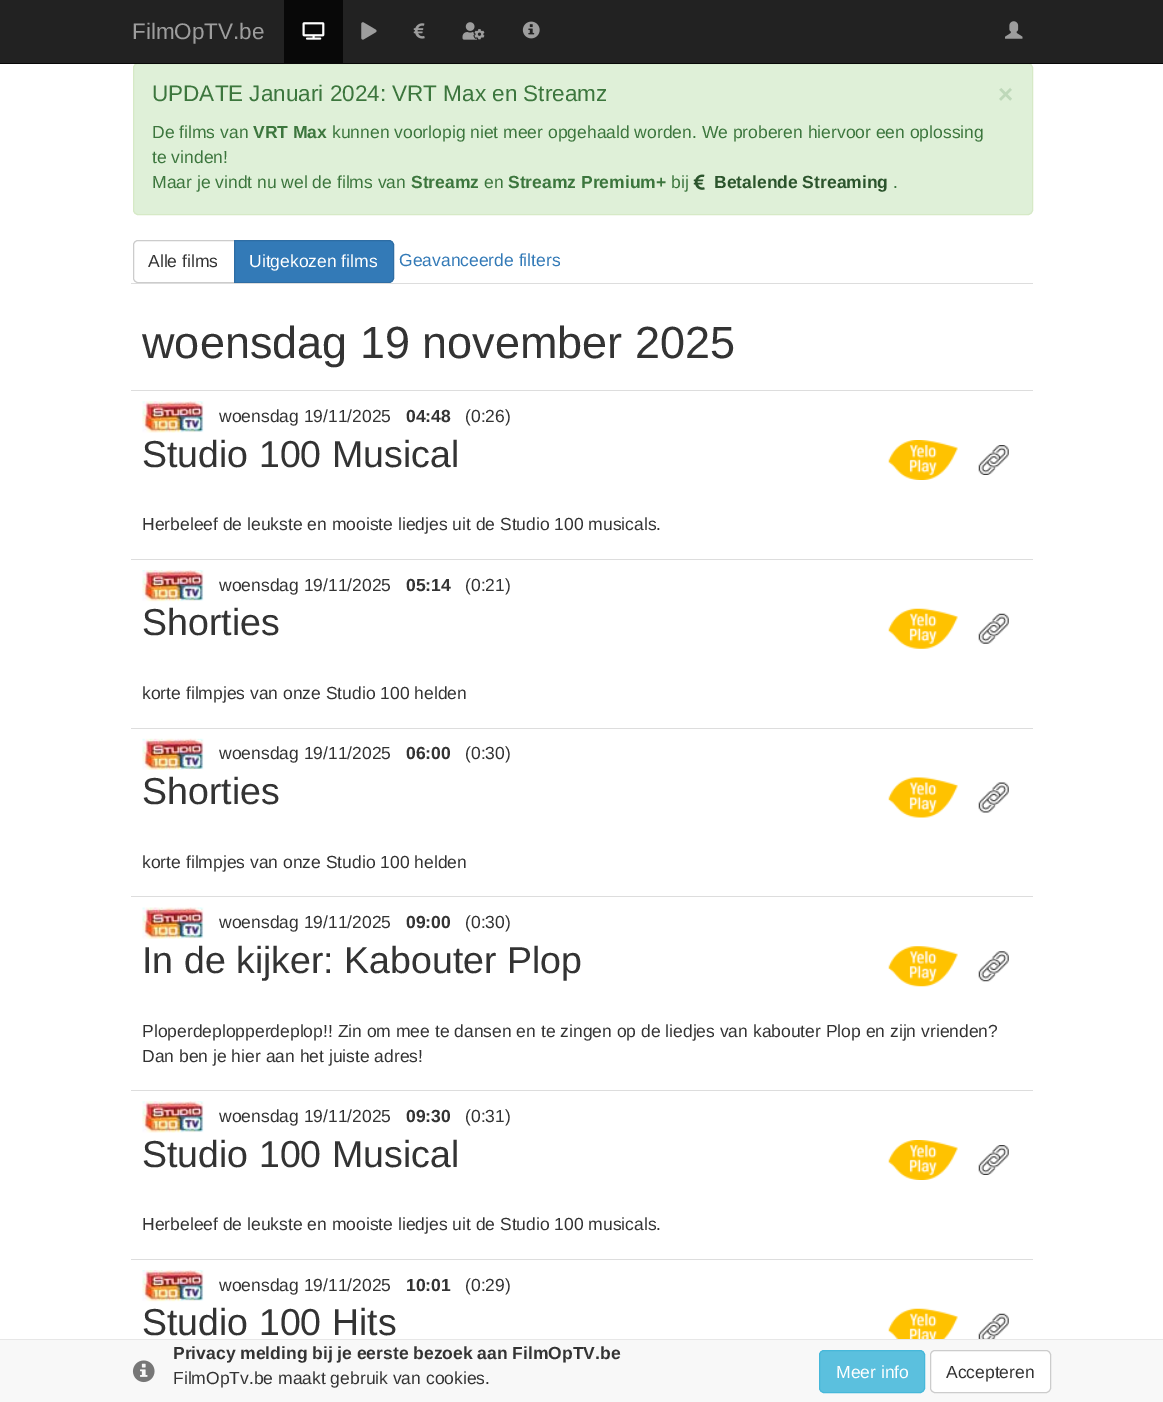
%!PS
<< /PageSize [1163 1402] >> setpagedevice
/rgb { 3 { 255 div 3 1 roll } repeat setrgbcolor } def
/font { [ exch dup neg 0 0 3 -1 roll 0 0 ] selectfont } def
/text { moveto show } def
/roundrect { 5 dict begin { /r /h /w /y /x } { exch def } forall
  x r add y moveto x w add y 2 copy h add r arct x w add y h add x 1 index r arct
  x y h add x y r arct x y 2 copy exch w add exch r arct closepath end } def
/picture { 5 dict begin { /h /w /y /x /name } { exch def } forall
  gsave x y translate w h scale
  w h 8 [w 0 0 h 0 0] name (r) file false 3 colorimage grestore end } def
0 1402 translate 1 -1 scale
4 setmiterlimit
255 255 255 rgb
0 0 1163 1402 rectfill
34 34 34 rgb
0 0 1163 63 rectfill
223 240 216 rgb
133.5 63.5 899 151 4.5 roundrect gsave fill grestore
214 233 198 rgb
stroke
8 8 8 rgb
0 63 1163 1 rectfill
284 0 59 63 rectfill
(img_01.rgb) 302 22 23 18 picture
(img_02.rgb) 361 22 16 18 picture
(img_03.rgb) 413 23 12 16 picture
(img_04.rgb) 462 22 23 18 picture
(img_05.rgb) 522 21 18 18 picture
(img_06.rgb) 1005 21 18 18 picture
(img_07.rgb) 693 174 12 16 picture
204 204 204 rgb
138 240.5 moveto 96.5 0 rlineto 0 42 rlineto -96.5 0 rlineto -2.5 0 -4.5 -2 -4.5 -4.5 rcurveto 0 -33 rlineto 0 -2.5 2 -4.5 4.5 -4.5 rcurveto closepath stroke
51 122 183 rgb
234.5 240.5 moveto 154.5 0 rlineto 2.5 0 4.5 2 4.5 4.5 rcurveto 0 33 rlineto 0 2.5 -2 4.5 -4.5 4.5 rcurveto -154.5 0 rlineto closepath gsave fill grestore
46 109 164 rgb
stroke
221 221 221 rgb
131 283 902 1 rectfill
131 390 902 1 rectfill
(img_08.rgb) 142 401 62 32 picture
(img_09.rgb) 888 440 70 40 picture
(img_10.rgb) 978 445 31 30 picture
131 559 902 1 rectfill
(img_11.rgb) 142 570 62 32 picture
(img_12.rgb) 888 608 70 41 picture
(img_13.rgb) 978 613 31 31 picture
131 728 902 1 rectfill
(img_14.rgb) 142 738 62 32 picture
(img_15.rgb) 888 777 70 41 picture
(img_16.rgb) 978 782 31 31 picture
131 896 902 1 rectfill
(img_17.rgb) 142 907 62 32 picture
(img_18.rgb) 888 946 70 41 picture
(img_19.rgb) 978 951 31 31 picture
131 1090 902 1 rectfill
(img_08.rgb) 142 1101 62 32 picture
(img_20.rgb) 888 1140 70 40 picture
(img_10.rgb) 978 1145 31 30 picture
131 1259 902 1 rectfill
(img_21.rgb) 142 1270 62 32 picture
(img_22.rgb) 888 1308 70 31 picture
(img_23.rgb) 978 1313 31 26 picture
248 248 248 rgb
0 1340 1163 62 rectfill
231 231 231 rgb
0 1339 1163 1 rectfill
(img_24.rgb) 132 1360 23 23 picture
91 192 222 rgb
819.5 1350.5 105 42 4.5 roundrect gsave fill grestore
70 184 218 rgb
stroke
255 255 255 rgb
930.5 1350.5 120 42 4.5 roundrect gsave fill grestore
204 204 204 rgb
stroke
/LiberationSans-Regular 22.5 font
157 157 157 rgb
(FilmOpTV.be) 132 39 text
60 118 61 rgb
(UPDATE Januari 2024: VRT Max en Streamz) 152 101 text
/LiberationSans-Bold 26 font
190 216 185 rgb
(×) 998 103 text
/LiberationSans-Regular 17.5 font
60 118 61 rgb
(De films van) 152 138 text
/LiberationSans-Bold 17.5 font
(VRT Max) 253 138 text
/LiberationSans-Regular 17.5 font
(kunnen voorlopig niet meer opgehaald worden. We proberen hiervoor een oplossing) 332 138 text
(te vinden!) 152 163 text
(Maar je vindt nu wel de films van) 152 188 text
/LiberationSans-Bold 17.5 font
(Streamz) 411 188 text
/LiberationSans-Regular 17.5 font
(en) 484 188 text
/LiberationSans-Bold 17.5 font
(Streamz Premium+) 508 188 text
/LiberationSans-Regular 17.5 font
(bij) 671 188 text
/LiberationSans-Bold 17.5 font
43 84 44 rgb
(Betalende Streaming) 714 188 text
/LiberationSans-Regular 17.5 font
60 118 61 rgb
(.) 893 188 text
51 51 51 rgb
(Alle films) 148 267 text
255 255 255 rgb
(Uitgekozen films) 249 267 text
51 122 183 rgb
(Geavanceerde filters) 399 266 text
/LiberationSans-Regular 45 font
51 51 51 rgb
(woensdag 19 november 2025) 142 358 text
/LiberationSans-Regular 17.5 font
(woensdag 19/11/2025) 219 422 text
/LiberationSans-Bold 17.5 font
(04:48) 406 422 text
/LiberationSans-Regular 17.5 font
(\(0:26\)) 465 422 text
/LiberationSans-Regular 37.5 font
(Studio 100 Musical) 142 467 text
/LiberationSans-Regular 17.5 font
(Herbeleef de leukste en mooiste liedjes uit de Studio 100 musicals.) 142 530 text
(woensdag 19/11/2025) 219 591 text
/LiberationSans-Bold 17.5 font
(05:14) 406 591 text
/LiberationSans-Regular 17.5 font
(\(0:21\)) 465 591 text
/LiberationSans-Regular 37.5 font
(Shorties) 142 635 text
/LiberationSans-Regular 17.5 font
(korte filmpjes van onze Studio 100 helden) 142 699 text
(woensdag 19/11/2025) 219 759 text
/LiberationSans-Bold 17.5 font
(06:00) 406 759 text
/LiberationSans-Regular 17.5 font
(\(0:30\)) 465 759 text
/LiberationSans-Regular 37.5 font
(Shorties) 142 804 text
/LiberationSans-Regular 17.5 font
(korte filmpjes van onze Studio 100 helden) 142 868 text
(woensdag 19/11/2025) 219 928 text
/LiberationSans-Bold 17.5 font
(09:00) 406 928 text
/LiberationSans-Regular 17.5 font
(\(0:30\)) 465 928 text
/LiberationSans-Regular 37.5 font
(In de kijker: Kabouter Plop) 142 973 text
/LiberationSans-Regular 17.5 font
(Ploperdeplopperdeplop!! Zin om mee te dansen en te zingen op de liedjes van kabouter Plop en zijn vrienden?) 142 1037 text
(Dan ben je hier aan het juiste adres!) 142 1062 text
(woensdag 19/11/2025) 219 1122 text
/LiberationSans-Bold 17.5 font
(09:30) 406 1122 text
/LiberationSans-Regular 17.5 font
(\(0:31\)) 465 1122 text
/LiberationSans-Regular 37.5 font
(Studio 100 Musical) 142 1167 text
/LiberationSans-Regular 17.5 font
(Herbeleef de leukste en mooiste liedjes uit de Studio 100 musicals.) 142 1230 text
(woensdag 19/11/2025) 219 1291 text
/LiberationSans-Bold 17.5 font
(10:01) 406 1291 text
/LiberationSans-Regular 17.5 font
(\(0:29\)) 465 1291 text
/LiberationSans-Regular 37.5 font
(Studio 100 Hits) 142 1335 text
/LiberationSans-Bold 17.5 font
(Privacy melding bij je eerste bezoek aan FilmOpTV.be) 173 1359 text
/LiberationSans-Regular 17.5 font
(FilmOpTv.be maakt gebruik van cookies.) 173 1384 text
255 255 255 rgb
(Meer info) 836 1378 text
51 51 51 rgb
(Accepteren) 946 1378 text
showpage
